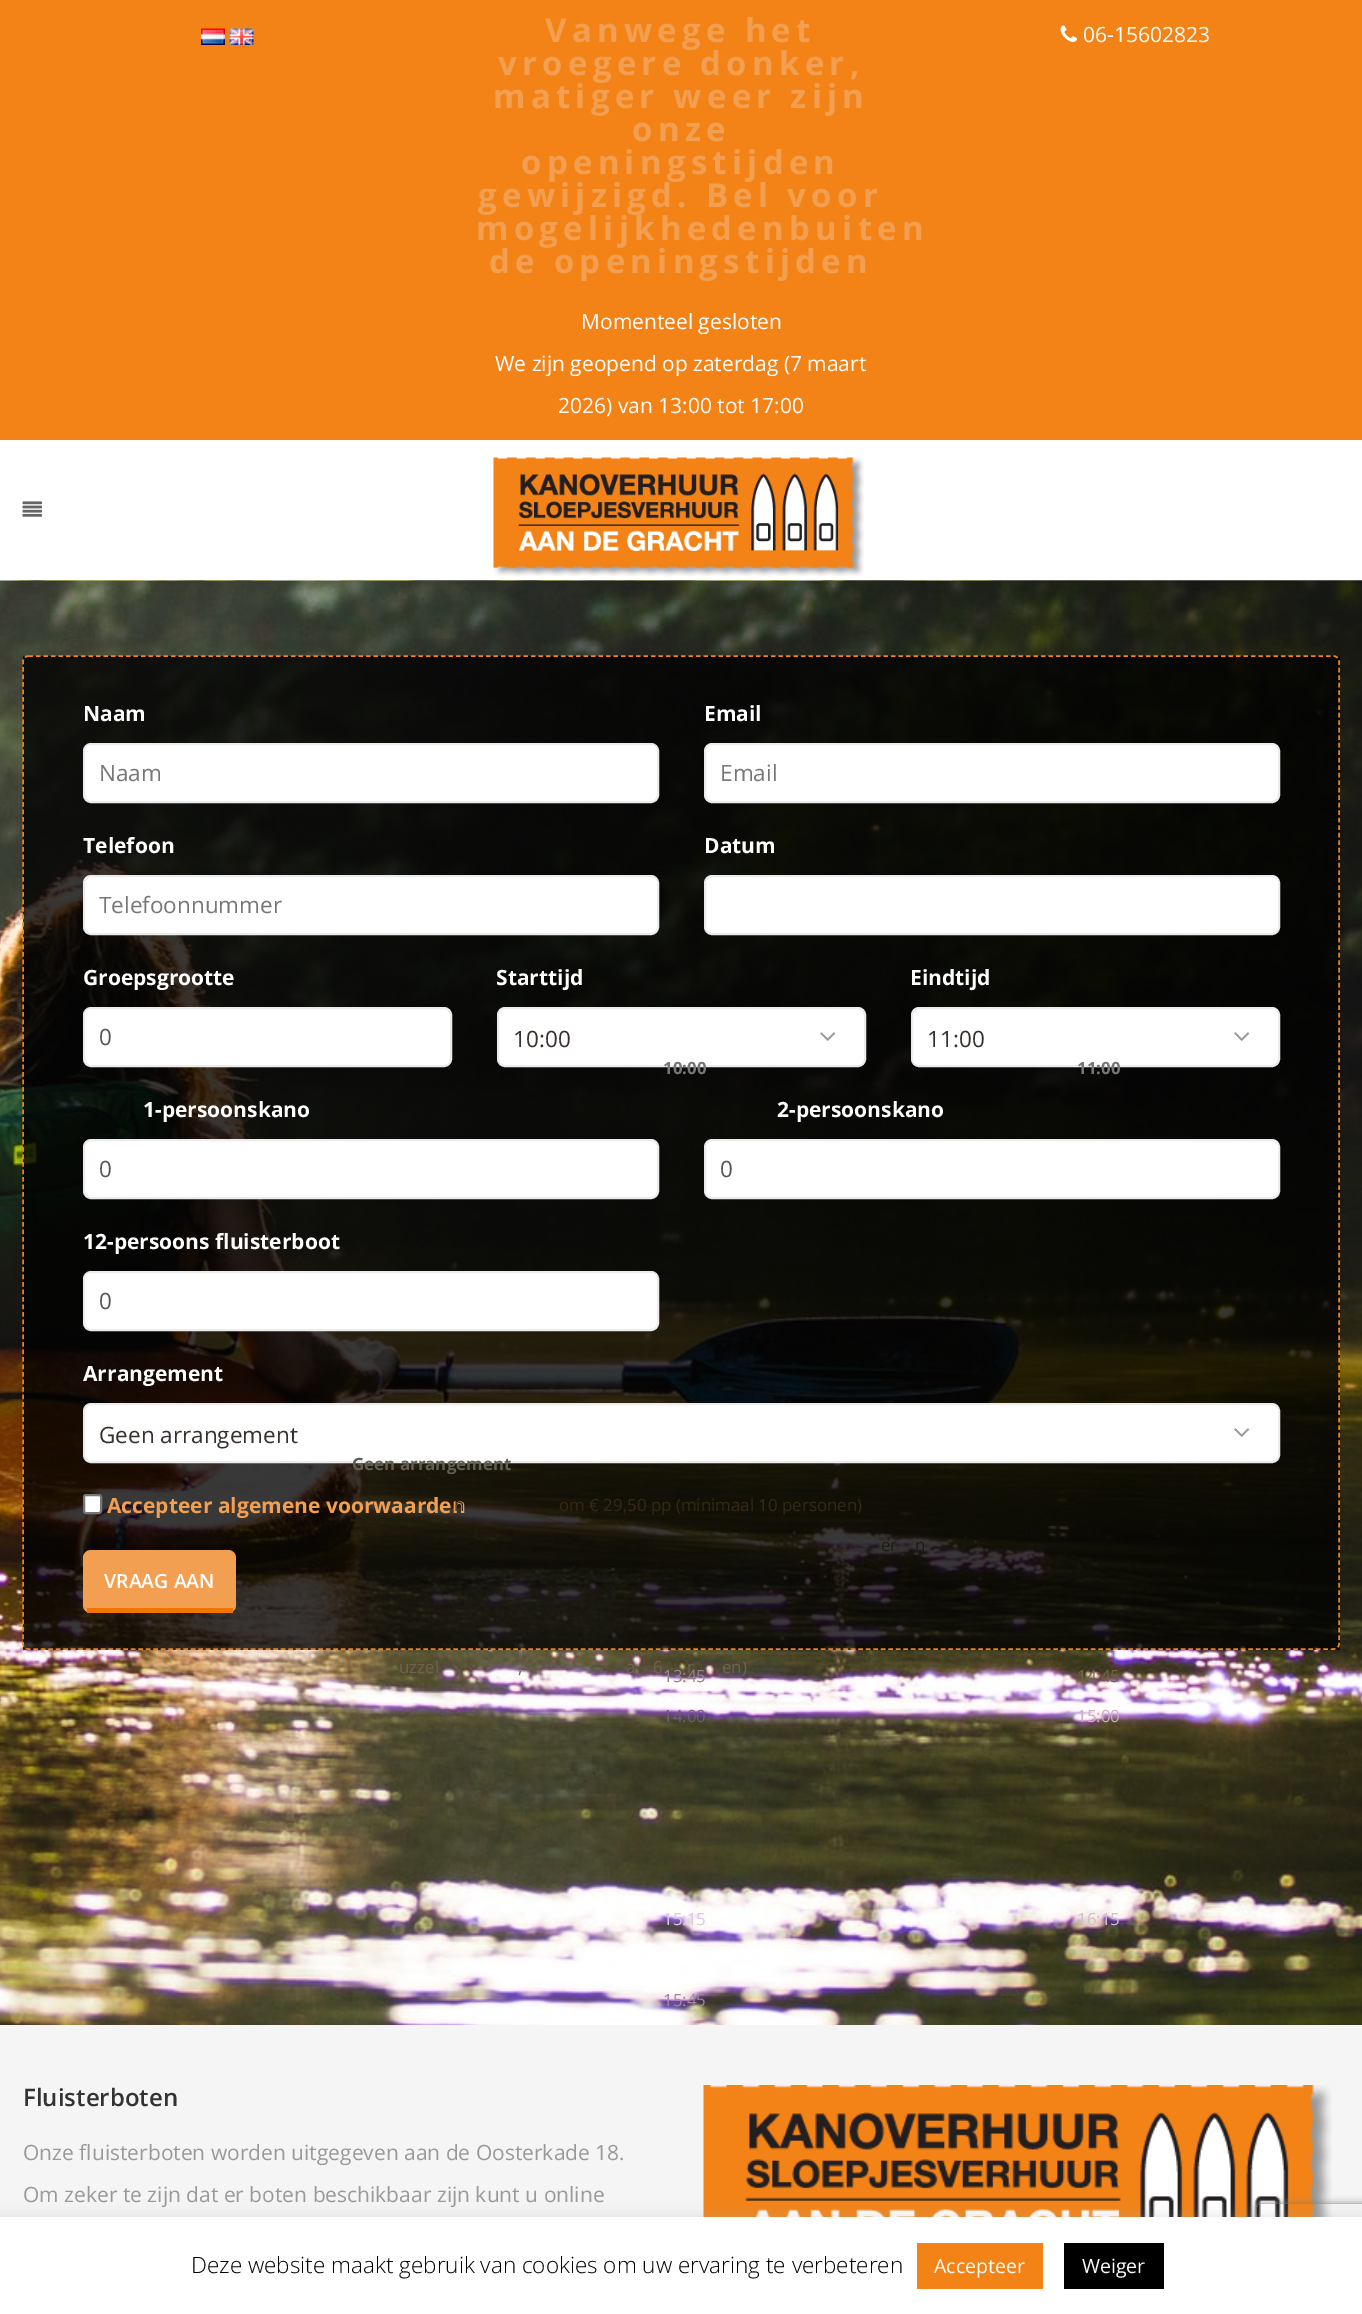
%!PS
<< /PageSize [1362 2314] /PageUsesTransparency true >> setpagedevice
/rgb { 3 { 255 div 3 1 roll } repeat setrgbcolor } def
/font { [ exch dup neg 0 0 3 -1 roll 0 0 ] selectfont } def
/text { moveto show } def
/alpha { dup .setfillconstantalpha .setstrokeconstantalpha } def
/roundrect { 5 dict begin { /r /h /w /y /x } { exch def } forall
  x r add y moveto x w add y 2 copy h add r arct x w add y h add x 1 index r arct
  x y h add x y r arct x y 2 copy exch w add exch r arct closepath end } def
/shadow { 12 dict begin { /a /b /q /h /w /y /x } { exch def } forall gsave /was 0 def
  9 -2 -9 { dup b mul 4 div /e exch def 1 sub .425 mul 2.718 exch exp 1 add a .99 .min exch div /now exch def
    1 1 now sub 1 was sub div sub alpha /was now def
    w h .min e 2 mul add 0 gt { x e sub y e sub w e 2 mul add h e 2 mul add
      q e add b .6 mul add w h .min 2 div e add .min 0 .max roundrect fill } if } for grestore end } def
/picture { 5 dict begin { /h /w /y /x /name } { exch def } forall
  gsave x y translate w h scale
  w h 8 [w 0 0 h 0 0] name (r) file false 3 colorimage grestore end } def
0 .pushpdf14devicefilter
0 2314 translate 1 -1 scale
4 setmiterlimit
255 255 255 rgb
0 0 1362 2314 rectfill
243 131 23 rgb
0 0 1362 440 rectfill
(img_01.rgb) 201 28 24 17 picture
(img_02.rgb) 229 28 25 17 picture
(img_03.rgb) 1060 25 17 17 picture
(img_04.rgb) 22 501 20 16 picture
(img_05.rgb) 493 457 371 119 picture
(img_06.rgb) 0 580 1362 1 picture
(img_07.rgb) 0 580 1362 1445 picture
0.78 alpha
0 0 0 rgb
23 656 1317 994 rectfill
1 alpha
243 131 23 rgb
1.5 setlinewidth
[4.5 3] 0 setdash
28.5 656 moveto 1305 0 rlineto 3 0 5.5 2.5 5.5 5.5 rcurveto 0 982.5 rlineto 0 3 -2.5 5 -5.5 5 rcurveto -1305 0 rlineto -3 0 -5.5 -2 -5.5 -5 rcurveto 0 -982.5 rlineto 0 -3 2.5 -5.5 5.5 -5.5 rcurveto closepath stroke
255 255 255 rgb
84 744 574 58 7 roundrect gsave fill grestore
236 236 236 rgb
2 setlinewidth
[] 0 setdash
stroke
255 255 255 rgb
705 744 574 58 7 roundrect gsave fill grestore
236 236 236 rgb
stroke
255 255 255 rgb
84 876 574 58 7 roundrect gsave fill grestore
236 236 236 rgb
stroke
255 255 255 rgb
705 876 574 58 7 roundrect gsave fill grestore
236 236 236 rgb
stroke
255 255 255 rgb
84 1008 367 58 7 roundrect gsave fill grestore
236 236 236 rgb
stroke
255 255 255 rgb
498 1008 367 58 7 roundrect gsave fill grestore
236 236 236 rgb
stroke
(img_08.rgb) 820 1032 16 9 picture
255 255 255 rgb
912 1008 367 58 7 roundrect gsave fill grestore
236 236 236 rgb
stroke
(img_08.rgb) 1234 1032 16 9 picture
255 255 255 rgb
84 1140 574 58 7 roundrect gsave fill grestore
236 236 236 rgb
stroke
255 255 255 rgb
705 1140 574 58 7 roundrect gsave fill grestore
236 236 236 rgb
stroke
255 255 255 rgb
84 1272 574 58 7 roundrect gsave fill grestore
236 236 236 rgb
stroke
255 255 255 rgb
84 1404 1195 58 7 roundrect gsave fill grestore
236 236 236 rgb
stroke
(img_08.rgb) 1234 1428 16 9 picture
255 255 255 rgb
84 1495 17 18 2 roundrect gsave fill grestore
118 118 118 rgb
stroke
242 159 82 rgb
83 1550 153 63 8 roundrect fill
242 117 0 rgb
87 1608 146 5 rectfill
245 245 245 rgb
0 2025 1362 192 rectfill
(img_09.rgb) 703 2085 629 132 picture
172 171 171 rgb
0 2216 1362 97 0 7.5 0.3 shadow
gsave
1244 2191 moveto 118 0 rlineto 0 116 rlineto -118 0 rlineto closepath 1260 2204 moveto 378 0 rlineto 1.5 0 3 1.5 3 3 rcurveto 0 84 rlineto 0 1.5 -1.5 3 -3 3 rcurveto -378 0 rlineto -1.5 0 -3 -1.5 -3 -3 rcurveto 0 -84 rlineto 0 -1.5 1.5 -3 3 -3 rcurveto closepath eoclip newpath
128 128 128 rgb
1257 2204 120 90 3 4 1 shadow
grestore
255 255 255 rgb
0 2217 1362 97 rectfill
243 131 23 rgb
917 2243 126 46 rectfill
0 0 0 rgb
1064 2243 100 46 rectfill
/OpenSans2-Bold 33 font
242 159 82 rgb
545 42 moveto 5.25 0 (Vanwege het) ashow
498 75 moveto 5.25 0 (vroegere donker,) ashow
493 108 moveto 5.25 0 (matiger weer zijn) ashow
632 141 moveto 5.25 0 (onze) ashow
521 174 moveto 5.25 0 (openingstijden) ashow
478 207 moveto 5.25 0 (gewijzigd. Bel voor) ashow
476 240 moveto 5.25 0 (mogelijkhedenbuiten) ashow
489 273 moveto 5.25 0 (de openingstijden) ashow
/OpenSans-Regular 21 font
255 255 255 rgb
(Momenteel gesloten) 581 329 text
(We zijn geopend op zaterdag \(7 maart) 495 371 text
(2026\) van 13:00 tot 17:00) 558 413 text
(06-15602823) 1083 42 text
/OpenSans-Bold 21 font
(Naam) 83 721 text
/OpenSans-Regular 22.5 font
119 119 119 rgb
(Naam) 99 781 text
/OpenSans-Bold 21 font
255 255 255 rgb
(Email) 704 721 text
/OpenSans-Regular 22.5 font
119 119 119 rgb
(Email) 720 781 text
/OpenSans-Bold 21 font
255 255 255 rgb
(Telefoon) 83 853 text
/OpenSans-Regular 22.5 font
119 119 119 rgb
(Telefoonnummer) 99 913 text
/OpenSans-Bold 21 font
255 255 255 rgb
(Datum) 704 853 text
(Groepsgrootte) 83 985 text
/OpenSans-Regular 22.5 font
85 85 85 rgb
(0) 99 1045 text
/OpenSans-Bold 21 font
255 255 255 rgb
(Starttijd) 496 985 text
/OpenSans-Regular 22.5 font
55 47 43 rgb
(10:00) 513 1047 text
/OpenSans-Bold 16.9 font
119 119 119 rgb
(10:00) 663 1074 text
/OpenSans-Regular 16.9 font
148 133 140 rgb
(13:45) 663 1682 text
114 91 124 rgb
(14:00) 663 1722 text
216 203 224 rgb
(15:15) 663 1925 text
160 135 164 rgb
(15:45) 663 2006 text
/OpenSans-Bold 21 font
255 255 255 rgb
(Eindtijd) 910 985 text
/OpenSans-Regular 22.5 font
55 47 43 rgb
(11:00) 927 1047 text
/OpenSans-Bold 16.9 font
119 119 119 rgb
(11:00) 1077 1074 text
/OpenSans-Regular 16.9 font
114 96 83 rgb
(14:45) 1077 1682 text
199 174 193 rgb
(15:00) 1077 1722 text
208 190 200 rgb
(16:15) 1077 1925 text
/OpenSans-Bold 21 font
255 255 255 rgb
(1-persoonskano) 143 1117 text
/OpenSans-Regular 22.5 font
85 85 85 rgb
(0) 99 1177 text
/OpenSans-Bold 21 font
255 255 255 rgb
(2-persoonskano) 777 1117 text
/OpenSans-Regular 22.5 font
85 85 85 rgb
(0) 720 1177 text
/OpenSans-Bold 21 font
255 255 255 rgb
(12-persoons fluisterboot) 83 1249 text
/OpenSans-Regular 22.5 font
85 85 85 rgb
(0) 99 1309 text
/OpenSans-Bold 21 font
255 255 255 rgb
(Arrangement) 83 1381 text
/OpenSans-Regular 22.5 font
55 47 43 rgb
(Geen arrangement) 99 1443 text
/OpenSans-Bold 16.9 font
98 94 84 rgb
(Geen arrangement) 352 1470 text
/OpenSans-Regular 16.9 font
54 40 21 rgb
(om € 29,50 pp \(minimaal 10 personen\)) 559 1511 text
28 25 17 rgb
(er) 881 1551 text
(n) 915 1551 text
114 96 83 rgb
(uzzel) 399 1673 text
(a) 626 1673 text
(6) 653 1673 text
(r) 687 1673 text
(en\)) 722 1673 text
(,) 518 1673 text
/OpenSans-Bold 21 font
242 159 82 rgb
(Accepteer algemene voorwaarden) 107 1513 text
/OpenSans-Regular 16.9 font
54 40 21 rgb
(n) 454 1511 text
/OpenSans-SemiBold 19.5 font
255 255 255 rgb
(VRAAG AAN) 104 1588 text
/OpenSans-SemiBold 24 font
51 51 51 rgb
(Fluisterboten) 23 2106 text
/OpenSans-Regular 21 font
153 153 153 rgb
(Onze fluisterboten worden uitgegeven aan de Oosterkade 18.) 23 2160 text
(Om zeker te zijn dat er boten beschikbaar zijn kunt u online) 23 2202 text
/OpenSans-Light 22.5 font
0 0 0 rgb
(Deze website maakt gebruik van cookies om uw ervaring te verbeteren) 191 2273 text
/OpenSans-Regular 19.5 font
255 255 255 rgb
(Accepteer) 934 2273 text
(Weiger) 1082 2273 text
.poppdf14devicefilter showpage
